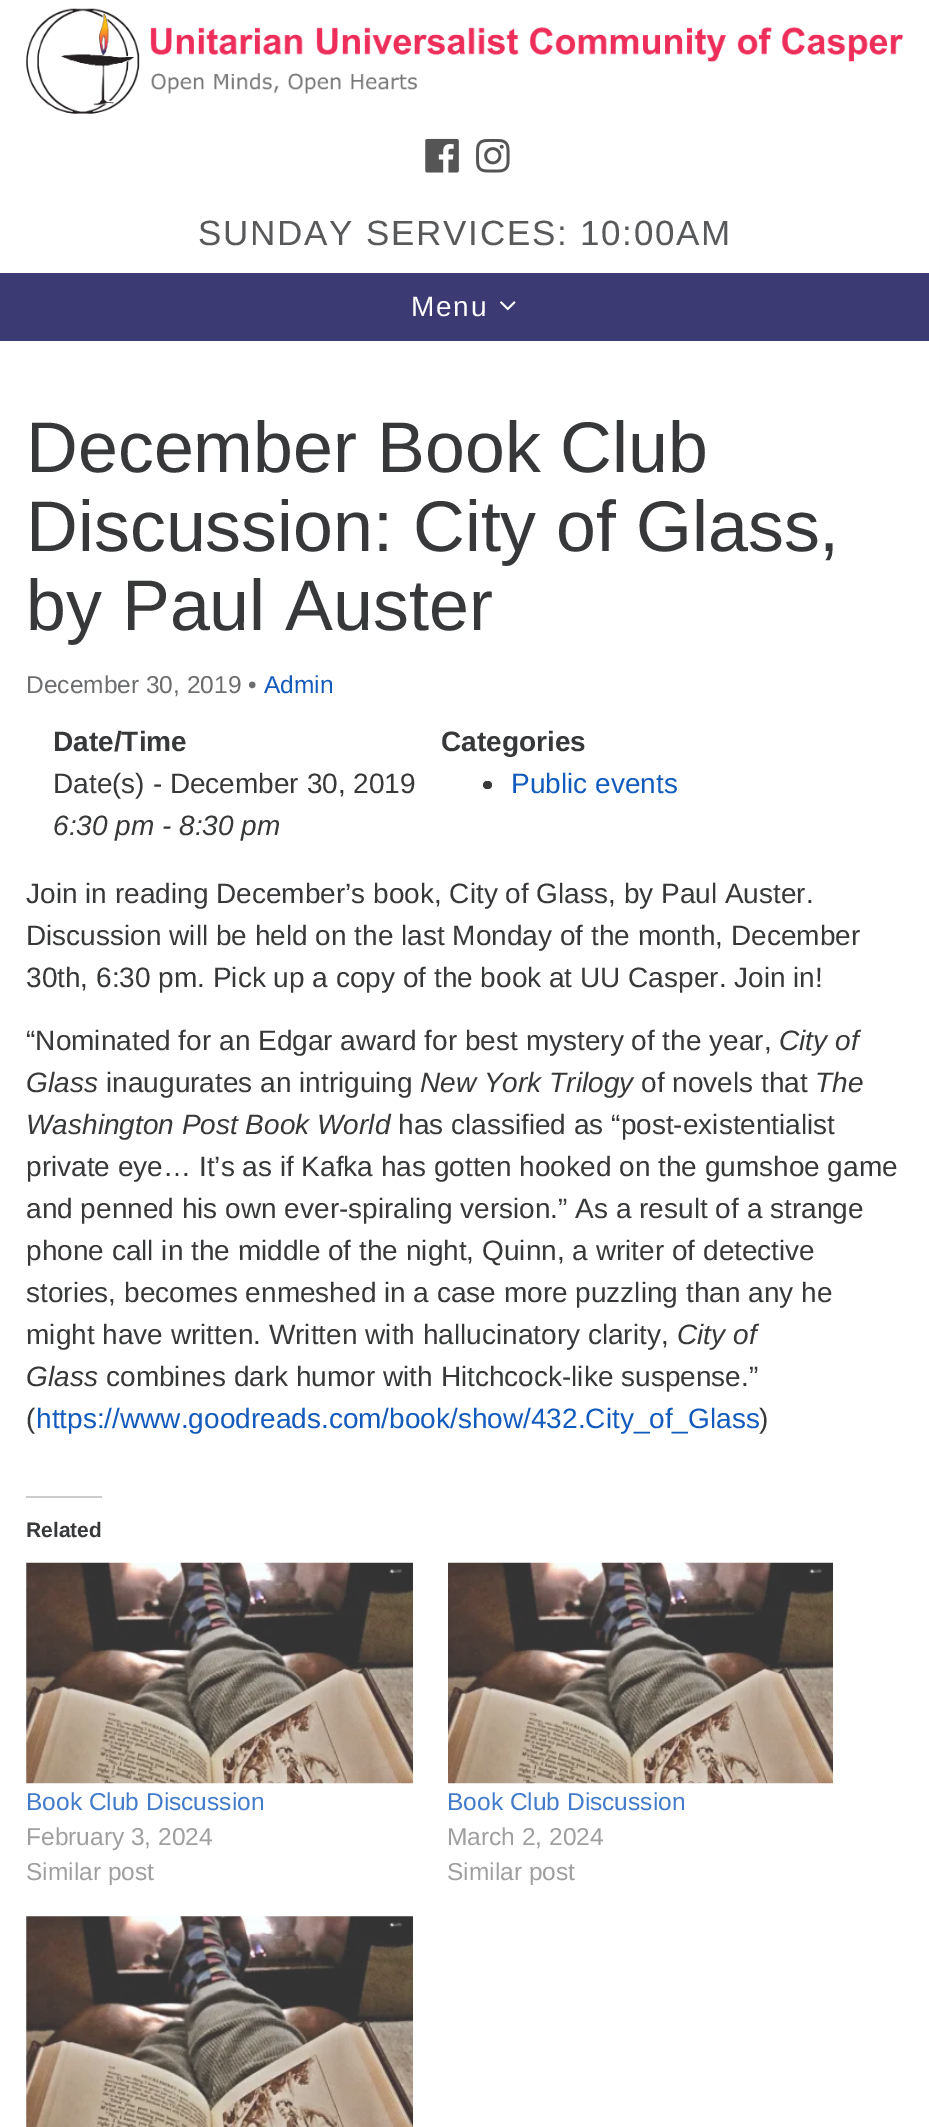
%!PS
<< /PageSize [929 2127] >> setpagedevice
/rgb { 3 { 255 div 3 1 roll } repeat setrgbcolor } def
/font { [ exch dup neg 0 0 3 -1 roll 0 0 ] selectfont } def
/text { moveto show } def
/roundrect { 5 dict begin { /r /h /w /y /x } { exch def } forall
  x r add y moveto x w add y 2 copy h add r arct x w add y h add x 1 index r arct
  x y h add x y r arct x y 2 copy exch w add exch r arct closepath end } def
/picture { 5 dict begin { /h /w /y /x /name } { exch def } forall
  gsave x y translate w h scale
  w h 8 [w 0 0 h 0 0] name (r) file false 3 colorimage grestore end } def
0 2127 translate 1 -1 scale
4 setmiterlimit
255 255 255 rgb
0 0 929 2127 rectfill
(img_01.rgb) 26 8 877 106 picture
(img_02.rgb) 425 138 34 35 picture
(img_03.rgb) 476 138 34 35 picture
60 58 115 rgb
0 273 929 68 rectfill
(img_04.rgb) 500 301 16 10 picture
55 56 57 rgb
483 781 9 8 4 roundrect fill
204 204 204 rgb
26 1496 76 2 rectfill
(img_05.rgb) 26 1562 387 222 picture
(img_06.rgb) 448 1562 385 222 picture
(img_07.rgb) 26 1916 387 211 picture
/LiberationSans-Regular 35 font
88 89 91 rgb
198 245 moveto 1.75 0 (SUNDAY SERVICES: 10:00AM) ashow
/LiberationSans-Regular 28 font
255 255 255 rgb
411 316 moveto 1.75 0 (Menu) ashow
/LiberationSans-Regular 71.75 font
55 56 57 rgb
(December Book Club) 26 472 text
(Discussion: City of Glass,) 26 551 text
(by Paul Auster) 26 630 text
/LiberationSans-Regular 24.5 font
108 109 111 rgb
(December 30, 2019 •) 26 693 text
18 90 187 rgb
(Admin) 264 693 text
/LiberationSans-Bold 28 font
55 56 57 rgb
(Date/Time) 53 751 text
/LiberationSans-Regular 28 font
(Date\(s\) - December 30, 2019) 53 793 text
/LiberationSans-Italic 28 font
(6:30 pm - 8:30 pm) 53 835 text
/LiberationSans-Bold 28 font
(Categories) 441 751 text
/LiberationSans-Regular 28 font
18 90 187 rgb
(Public events) 511 793 text
55 56 57 rgb
(Join in reading December’s book, City of Glass, by Paul Auster.) 26 903 text
(Discussion will be held on the last Monday of the month, December) 26 945 text
(30th, 6:30 pm. Pick up a copy of the book at UU Casper. Join in!) 26 987 text
(“Nominated for an Edgar award for best mystery of the year,) 26 1050 text
/LiberationSans-Italic 28 font
(City of) 779 1050 text
(Glass) 26 1092 text
/LiberationSans-Regular 28 font
(inaugurates an intriguing) 106 1092 text
/LiberationSans-Italic 28 font
(New York Trilogy) 420 1092 text
/LiberationSans-Regular 28 font
(of novels that) 641 1092 text
/LiberationSans-Italic 28 font
(The) 815 1092 text
(Washington Post Book World) 26 1134 text
/LiberationSans-Regular 28 font
(has classified as “post-existentialist) 398 1134 text
(private eye… It’s as if Kafka has gotten hooked on the gumshoe game) 26 1176 text
(and penned his own ever-spiraling version.” As a result of a strange) 26 1218 text
(phone call in the middle of the night, Quinn, a writer of detective) 26 1260 text
(stories, becomes enmeshed in a case more puzzling than any he) 26 1302 text
(might have written. Written with hallucinatory clarity,) 26 1344 text
/LiberationSans-Italic 28 font
(City of) 677 1344 text
(Glass) 26 1386 text
/LiberationSans-Regular 28 font
(combines dark humor with Hitchcock-like suspense.”) 106 1386 text
(\() 26 1428 text
18 90 187 rgb
(https://www.goodreads.com/book/show/432.City_of_Glass) 36 1428 text
55 56 57 rgb
(\)) 759 1428 text
/LiberationSans-Bold 21 font
(Related) 26 1537 text
/LiberationSans-Regular 24.5 font
65 123 201 rgb
(Book Club Discussion) 26 1810 text
159 159 160 rgb
(February 3, 2024) 26 1845 text
(Similar post) 26 1880 text
65 123 201 rgb
(Book Club Discussion) 447 1810 text
159 159 160 rgb
(March 2, 2024) 447 1845 text
(Similar post) 447 1880 text
showpage
